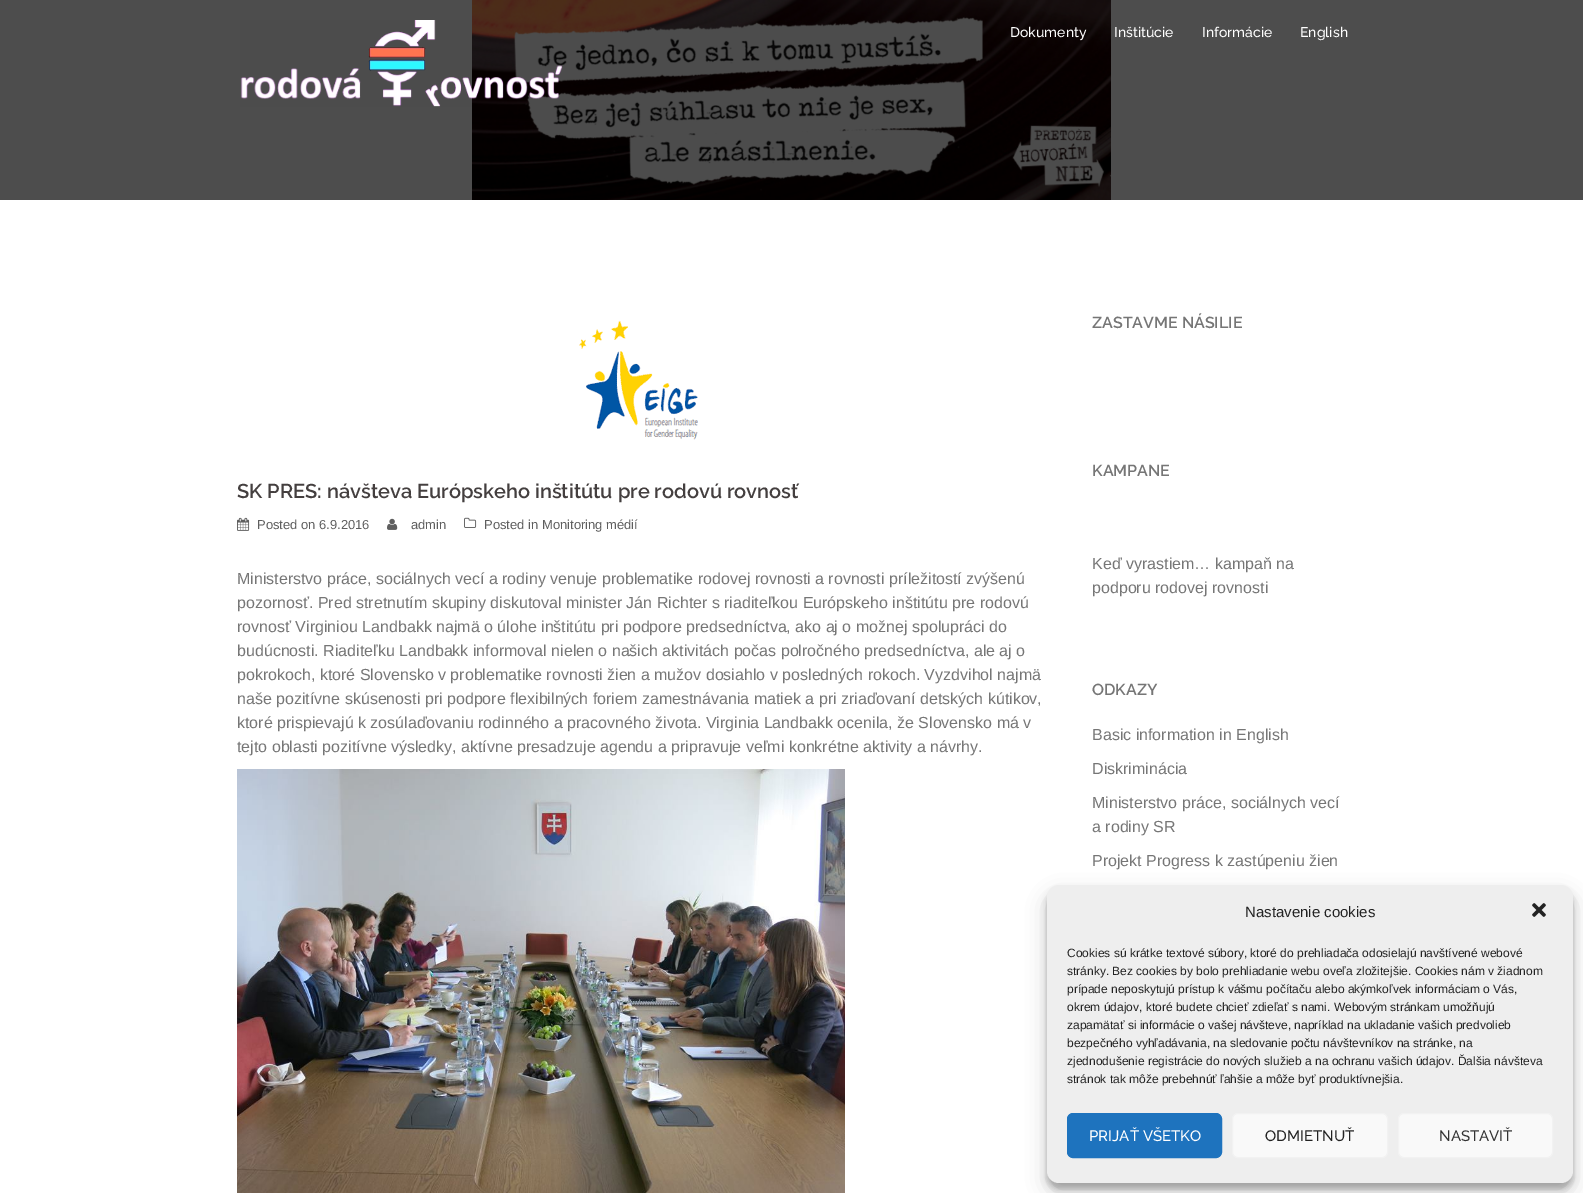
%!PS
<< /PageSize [1583 1193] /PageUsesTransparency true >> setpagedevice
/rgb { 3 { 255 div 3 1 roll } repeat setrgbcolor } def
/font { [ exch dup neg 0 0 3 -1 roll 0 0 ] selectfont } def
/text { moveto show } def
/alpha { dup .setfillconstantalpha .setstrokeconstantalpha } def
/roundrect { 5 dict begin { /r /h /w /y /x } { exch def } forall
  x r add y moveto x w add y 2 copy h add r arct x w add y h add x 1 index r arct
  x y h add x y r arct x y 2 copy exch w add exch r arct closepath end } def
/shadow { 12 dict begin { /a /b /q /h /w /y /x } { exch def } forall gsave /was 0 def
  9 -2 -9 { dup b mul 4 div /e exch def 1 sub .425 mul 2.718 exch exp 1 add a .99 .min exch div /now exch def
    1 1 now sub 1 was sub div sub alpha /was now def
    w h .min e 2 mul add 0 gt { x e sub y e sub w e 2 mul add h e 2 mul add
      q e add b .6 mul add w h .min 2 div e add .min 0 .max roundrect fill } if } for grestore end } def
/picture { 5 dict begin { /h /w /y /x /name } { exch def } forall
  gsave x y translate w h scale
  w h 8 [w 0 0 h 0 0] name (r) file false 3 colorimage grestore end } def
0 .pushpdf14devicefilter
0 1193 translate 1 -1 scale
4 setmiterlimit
255 255 255 rgb
0 0 1583 1193 rectfill
77 77 77 rgb
0 0 1583 200 rectfill
(img_01.rgb) 472 0 639 200 picture
(img_02.rgb) 240 20 323 87 picture
(img_03.rgb) 579 320 119 120 picture
(img_04.rgb) 237 517 13 14 picture
(img_05.rgb) 387 518 11 12 picture
(img_06.rgb) 464 517 13 11 picture
(img_07.rgb) 237 769 608 424 picture
0 0 0 rgb
1047 891 526 298 12 3 0.23 shadow
1047 895 526 298 12 10 0.19 shadow
238 238 238 rgb
1047 885 526 298 12 roundrect fill
(img_08.rgb) 1532 903 14 14 picture
30 115 190 rgb
1067.5 1113.5 154 44 5.5 roundrect gsave fill grestore
stroke
249 249 249 rgb
1232.5 1113.5 155 44 5.5 roundrect gsave fill grestore
242 242 242 rgb
stroke
249 249 249 rgb
1398.5 1113.5 154 44 5.5 roundrect gsave fill grestore
242 242 242 rgb
stroke
/Raleway-Medium 14 font
255 255 255 rgb
(Dokumenty) 1010 37 text
(Inštitúcie) 1114 37 text
(Informácie) 1202 37 text
(English) 1300 37 text
/Raleway-SemiBold 20 font
68 63 63 rgb
(SK PRES: návšteva Európskeho inštitútu pre rodovú rovnosť) 237 498 text
/LiberationSans-Regular 13 font
94 94 94 rgb
(Posted on 6.9.2016) 257 529 text
(admin) 411 529 text
(Posted in Monitoring médií) 484 529 text
/LiberationSans-Regular 16 font
118 118 118 rgb
(Ministerstvo práce, sociálnych vecí a rodiny venuje problematike rodovej rovnosti a rovnosti príležitostí zvýšenú) 237 584 text
(pozornosť. Pred stretnutím skupiny diskutoval minister Ján Richter s riaditeľkou Európskeho inštitútu pre rodovú) 237 608 text
(rovnosť Virginiou Landbakk najmä o úlohe inštitútu pri podpore predsedníctva, ako aj o možnej spolupráci do) 237 632 text
(budúcnosti. Riaditeľku Landbakk informoval nielen o našich aktivitách počas polročného predsedníctva, ale aj o) 237 656 text
(pokrokoch, ktoré Slovensko v problematike rovnosti žien a mužov dosiahlo v posledných rokoch. Vyzdvihol najmä) 237 680 text
(naše pozitívne skúsenosti pri podpore flexibilných foriem zamestnávania matiek a pri zriaďovaní detských kútikov,) 237 704 text
(ktoré prispievajú k zosúlaďovaniu rodinného a pracovného života. Virginia Landbakk ocenila, že Slovensko má v) 237 728 text
(tejto oblasti pozitívne výsledky, aktívne presadzuje agendu a pripravuje veľmi konkrétne aktivity a návrhy.) 237 752 text
/Raleway-SemiBold 16 font
(ZASTAVME NÁSILIE) 1092 328 text
(KAMPANE) 1092 476 text
/LiberationSans-Regular 16 font
(Keď vyrastiem… kampaň na) 1092 569 text
(podporu rodovej rovnosti) 1092 593 text
/Raleway-SemiBold 16 font
(ODKAZY) 1092 695 text
/LiberationSans-Regular 16 font
(Basic information in English) 1092 740 text
(Diskriminácia) 1092 774 text
(Ministerstvo práce, sociálnych vecí) 1092 808 text
(a rodiny SR) 1092 832 text
(Projekt Progress k zastúpeniu žien) 1092 866 text
/LiberationSans-Regular 15 font
34 34 34 rgb
(Nastavenie cookies) 1245 917 text
/LiberationSans-Regular 12 font
(Cookies sú krátke textové súbory, ktoré do prehliadača odosielajú navštívené webové) 1067 957 text
(stránky. Bez cookies by bolo prehliadanie webu oveľa zložitejšie. Cookies nám v žiadnom) 1067 975 text
(prípade neposkytujú prístup k vášmu počítaču alebo akýmkoľvek informáciam o Vás,) 1067 993 text
(okrem údajov, ktoré budete chcieť zdieľať s nami. Webovým stránkam umožňujú) 1067 1011 text
(zapamätať si informácie o vašej návšteve, napríklad na ukladanie vašich predvolieb) 1067 1029 text
(bezpečného vyhľadávania, na sledovanie počtu návštevníkov na stránke, na) 1067 1047 text
(zjednodušenie registrácie do nových služieb a na ochranu vašich údajov. Ďalšia návšteva) 1067 1065 text
(stránok tak môže prebehnúť ľahšie a môže byť produktívnejšia.) 1067 1083 text
/Raleway-Medium 15 font
255 255 255 rgb
(PRIJAŤ VŠETKO) 1089 1141 text
34 34 34 rgb
(ODMIETNUŤ) 1265 1141 text
51 51 51 rgb
(NASTAVIŤ) 1439 1141 text
.poppdf14devicefilter showpage
